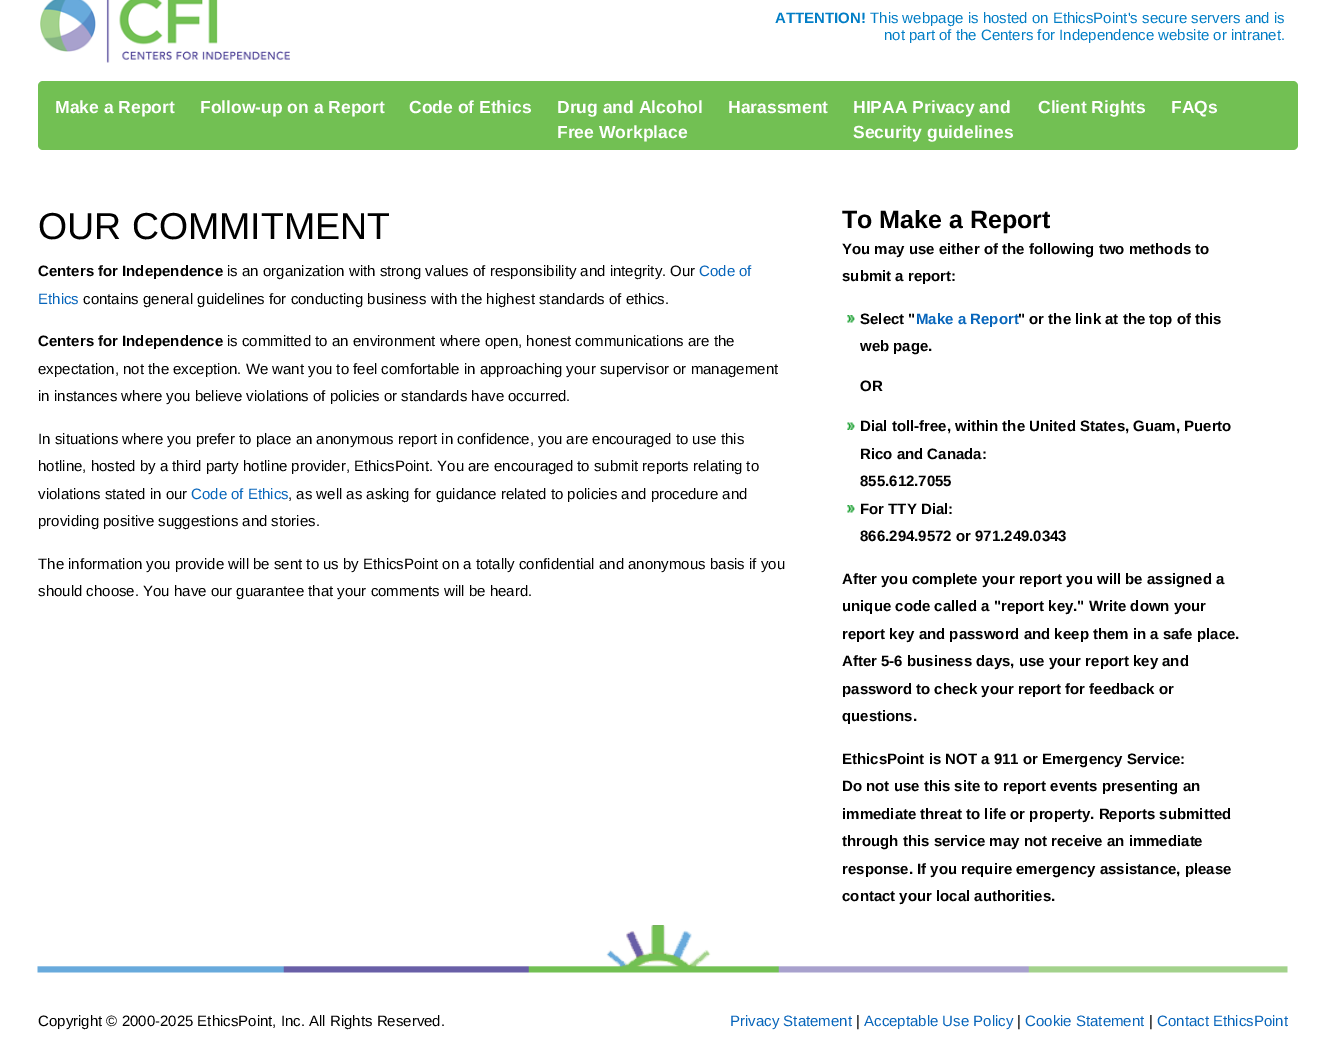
%!PS
<< /PageSize [1324 1044] >> setpagedevice
/rgb { 3 { 255 div 3 1 roll } repeat setrgbcolor } def
/font { [ exch dup neg 0 0 3 -1 roll 0 0 ] selectfont } def
/text { moveto show } def
/roundrect { 5 dict begin { /r /h /w /y /x } { exch def } forall
  x r add y moveto x w add y 2 copy h add r arct x w add y h add x 1 index r arct
  x y h add x y r arct x y 2 copy exch w add exch r arct closepath end } def
/picture { 5 dict begin { /h /w /y /x /name } { exch def } forall
  gsave x y translate w h scale
  w h 8 [w 0 0 h 0 0] name (r) file false 3 colorimage grestore end } def
0 1044 translate 1 -1 scale
4 setmiterlimit
255 255 255 rgb
0 0 1324 1044 rectfill
(img_01.rgb) 40 0 250 63 picture
114 192 83 rgb
38 81 1260 69 5 roundrect fill
(img_02.rgb) 847 315 8 8 picture
(img_03.rgb) 847 422 8 8 picture
(img_02.rgb) 847 505 8 8 picture
(img_04.rgb) 37 925 1251 48 picture
/LiberationSans-Bold 15 font
2 126 198 rgb
(ATTENTION!) 775 23 text
/LiberationSans-Regular 15 font
(This webpage is hosted on EthicsPoint's secure servers and is) 870 23 text
(not part of the Centers for Independence website or intranet.) 884 40 text
/LiberationSans-Bold 17.5 font
255 255 255 rgb
(Make a Report) 55 113 text
(Follow-up on a Report) 200 113 text
(Code of Ethics) 409 113 text
(Drug and Alcohol) 557 113 text
(Free Workplace) 557 138 text
(Harassment) 728 113 text
(HIPAA Privacy and) 853 113 text
(Security guidelines) 853 138 text
(Client Rights) 1038 113 text
(FAQs) 1171 113 text
/LiberationSans-Regular 37.5 font
0 0 0 rgb
(OUR COMMITMENT) 38 239 text
/LiberationSans-Bold 15 font
(Centers for Independence) 38 276 text
/LiberationSans-Regular 15 font
(is an organization with strong values of responsibility and integrity. Our) 227 276 text
7 101 187 rgb
(Code of) 699 276 text
(Ethics) 38 304 text
0 0 0 rgb
(contains general guidelines for conducting business with the highest standards of ethics.) 83 304 text
/LiberationSans-Bold 15 font
(Centers for Independence) 38 346 text
/LiberationSans-Regular 15 font
(is committed to an environment where open, honest communications are the) 227 346 text
(expectation, not the exception. We want you to feel comfortable in approaching your supervisor or management) 38 374 text
(in instances where you believe violations of policies or standards have occurred.) 38 401 text
(In situations where you prefer to place an anonymous report in confidence, you are encouraged to use this) 38 444 text
(hotline, hosted by a third party hotline provider, EthicsPoint. You are encouraged to submit reports relating to) 38 471 text
(violations stated in our) 38 499 text
7 101 187 rgb
(Code of Ethics) 191 499 text
0 0 0 rgb
(, as well as asking for guidance related to policies and procedure and) 288 499 text
(providing positive suggestions and stories.) 38 526 text
(The information you provide will be sent to us by EthicsPoint on a totally confidential and anonymous basis if you) 38 569 text
(should choose. You have our guarantee that your comments will be heard.) 38 596 text
/LiberationSans-Bold 25 font
(To Make a Report) 842 228 text
/LiberationSans-Bold 15 font
(You may use either of the following two methods to) 842 254 text
(submit a report:) 842 281 text
(Select ") 860 324 text
7 101 187 rgb
(Make a Report) 916 324 text
0 0 0 rgb
(" or the link at the top of this) 1018 324 text
(web page.) 860 351 text
(OR) 860 391 text
(Dial toll-free, within the United States, Guam, Puerto) 860 431 text
(Rico and Canada:) 860 459 text
(855.612.7055) 860 486 text
(For TTY Dial:) 860 514 text
(866.294.9572 or 971.249.0343) 860 541 text
(After you complete your report you will be assigned a) 842 584 text
(unique code called a "report key." Write down your) 842 611 text
(report key and password and keep them in a safe place.) 842 639 text
(After 5-6 business days, use your report key and) 842 666 text
(password to check your report for feedback or) 842 694 text
(questions.) 842 721 text
(EthicsPoint is NOT a 911 or Emergency Service:) 842 764 text
(Do not use this site to report events presenting an) 842 791 text
(immediate threat to life or property. Reports submitted) 842 819 text
(through this service may not receive an immediate) 842 846 text
(response. If you require emergency assistance, please) 842 874 text
(contact your local authorities.) 842 901 text
/LiberationSans-Regular 15 font
(Copyright © 2000-2025 EthicsPoint, Inc. All Rights Reserved.) 38 1026 text
7 101 187 rgb
(Privacy Statement) 730 1026 text
0 0 0 rgb
(|) 856 1026 text
7 101 187 rgb
(Acceptable Use Policy) 864 1026 text
0 0 0 rgb
(|) 1017 1026 text
7 101 187 rgb
(Cookie Statement) 1025 1026 text
0 0 0 rgb
(|) 1149 1026 text
7 101 187 rgb
(Contact EthicsPoint) 1157 1026 text
showpage
